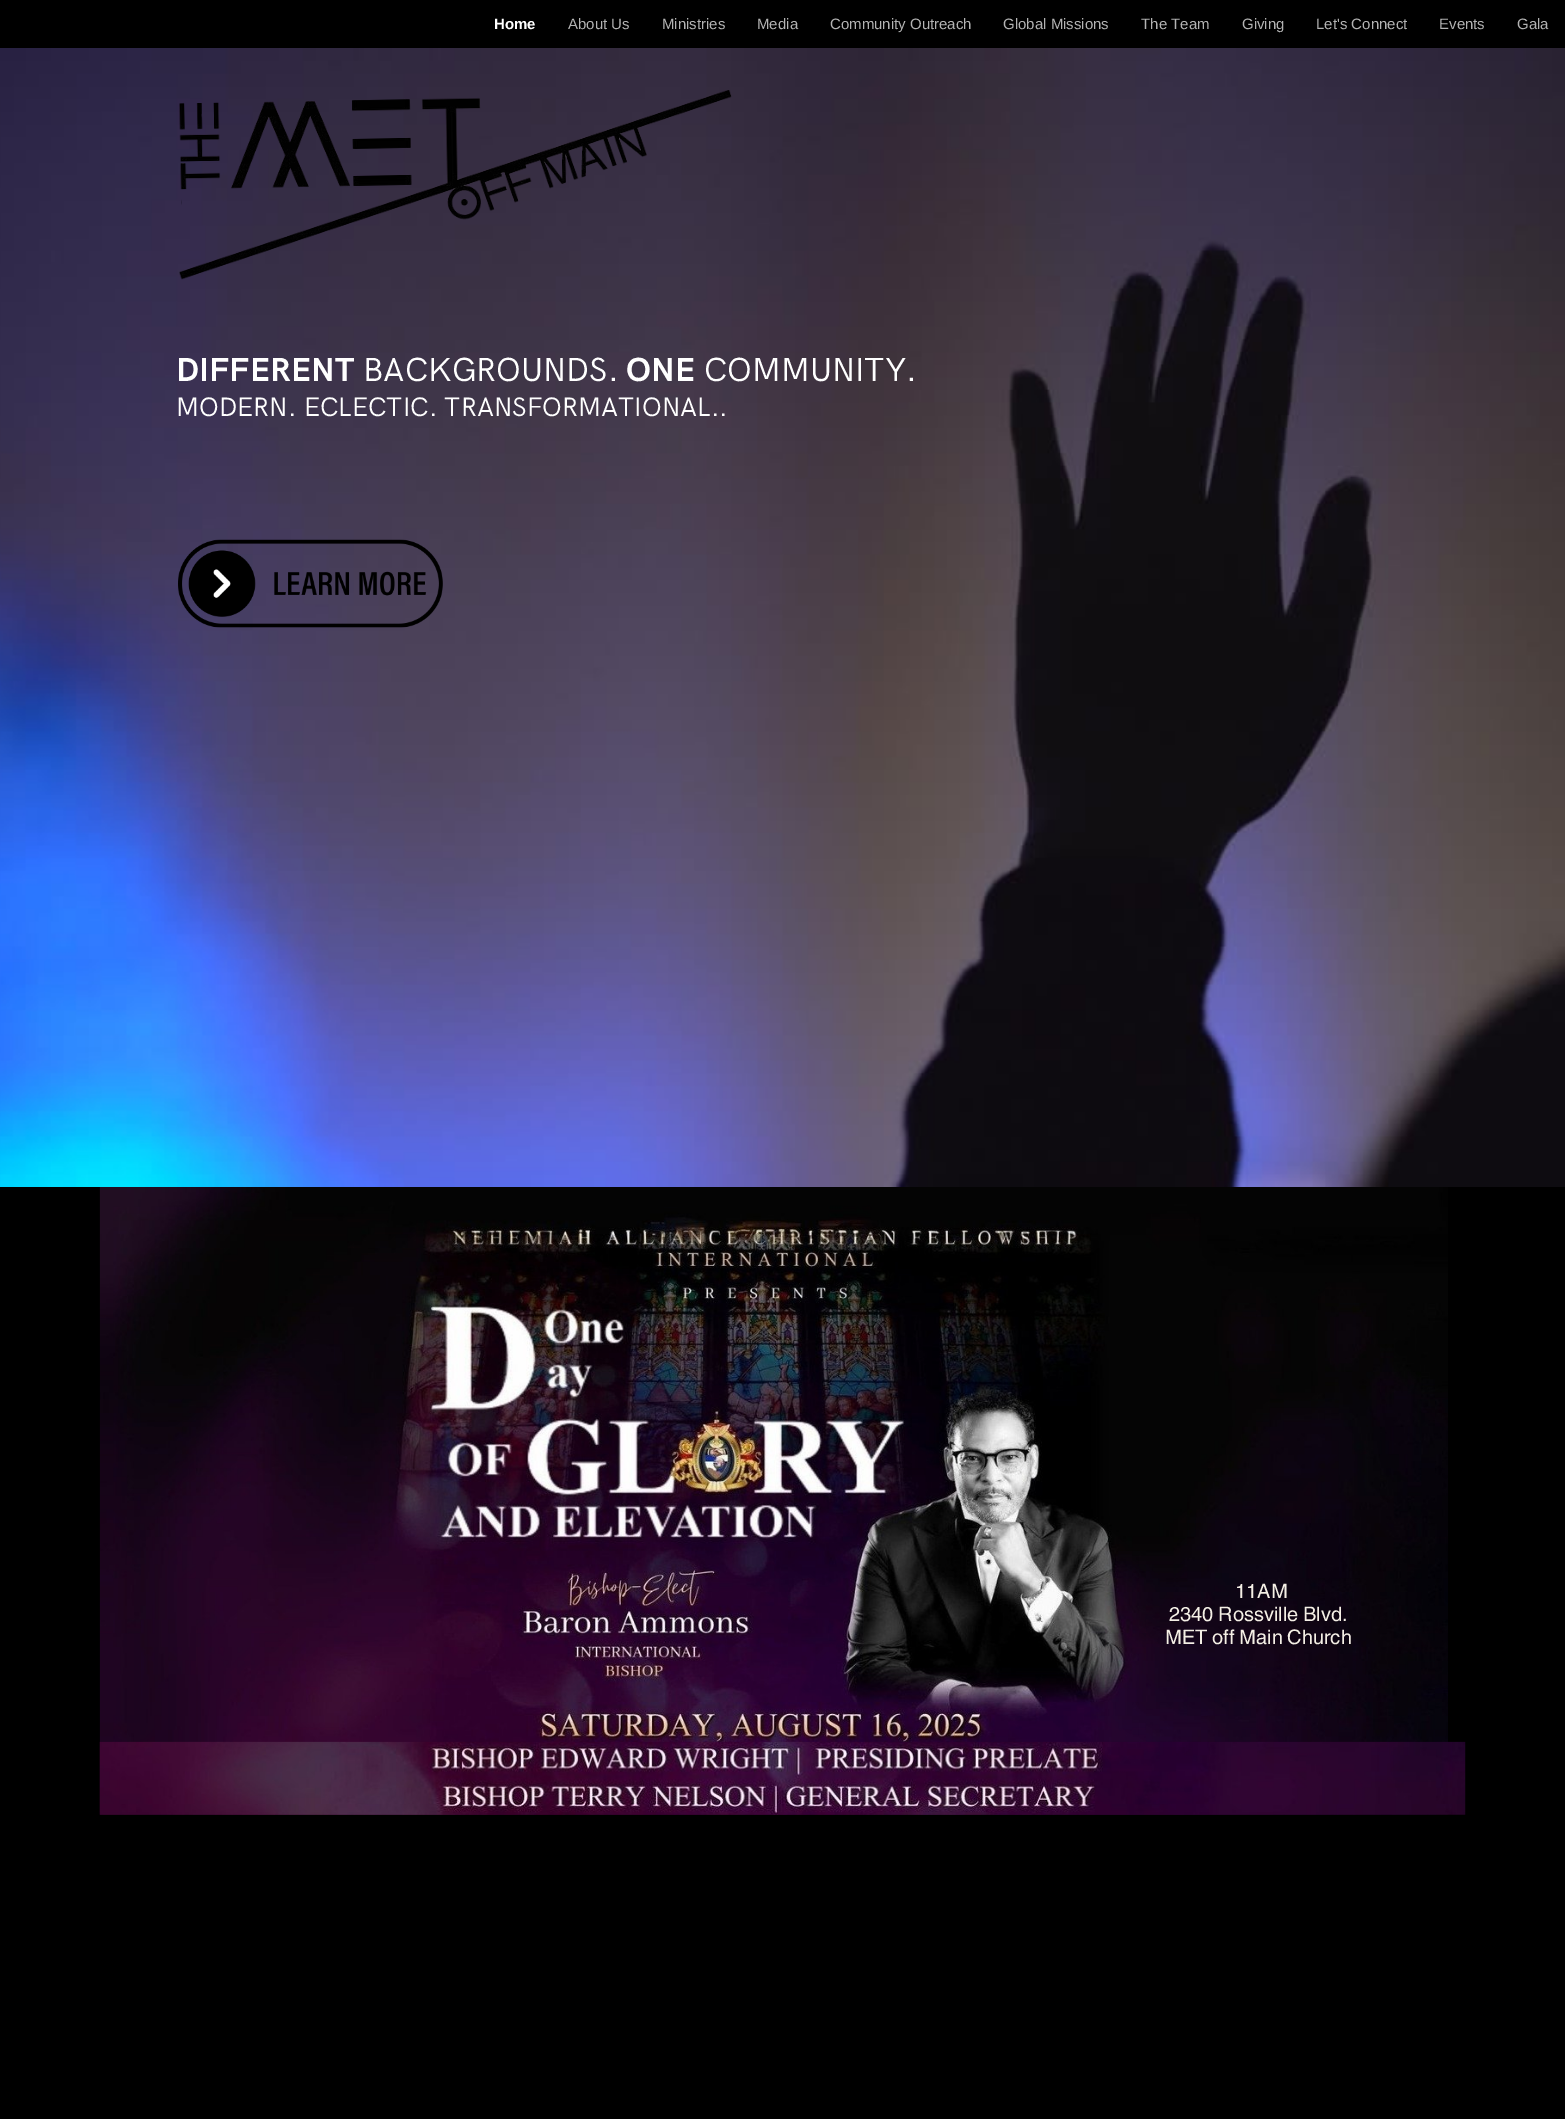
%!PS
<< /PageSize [1565 2119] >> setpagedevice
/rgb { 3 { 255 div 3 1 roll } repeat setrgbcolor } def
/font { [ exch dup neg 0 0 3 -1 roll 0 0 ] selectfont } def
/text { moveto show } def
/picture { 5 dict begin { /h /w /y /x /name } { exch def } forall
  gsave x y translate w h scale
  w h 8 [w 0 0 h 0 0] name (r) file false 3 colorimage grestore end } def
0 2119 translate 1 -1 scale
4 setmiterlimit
255 255 255 rgb
0 0 1565 2119 rectfill
0 0 0 rgb
0 0 1565 48 rectfill
(img_01.rgb) 0 48 1565 1139 picture
(img_02.rgb) 179 90 553 190 picture
(img_03.rgb) 178 539 265 89 picture
0 1187 1565 932 rectfill
(img_04.rgb) 99 1187 1349 628 picture
(img_05.rgb) 99 1741 1367 74 picture
/LiberationSans-Bold 15 font
255 255 255 rgb
(Home) 494 29 text
/LiberationSans-Regular 15 font
179 179 179 rgb
(About Us) 568 29 text
(Ministries) 662 29 text
(Media) 757 29 text
(Community Outreach) 830 29 text
(Global Missions) 1003 29 text
(The Team) 1141 29 text
(Giving) 1242 29 text
(Let's Connect) 1316 29 text
(Events) 1439 29 text
(Gala) 1517 29 text
/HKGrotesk-Bold 33.5 font
255 255 255 rgb
(DIFFERENT) 176 381 text
/HKGrotesk-Regular 33.5 font
(BACKGROUNDS.) 363 381 text
/HKGrotesk-Bold 33.5 font
(ONE) 626 381 text
/HKGrotesk-Regular 33.5 font
(COMMUNITY.) 704 381 text
/HKGrotesk-Regular 26.75 font
(MODERN. ECLECTIC. TRANSFORMATIONAL..) 176 416 text
/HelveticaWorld-Regular 20 font
244 239 229 rgb
(11AM) 1235 1598 text
(2340 Rossville Blvd.) 1169 1621 text
(MET off Main Church) 1165 1644 text
showpage
